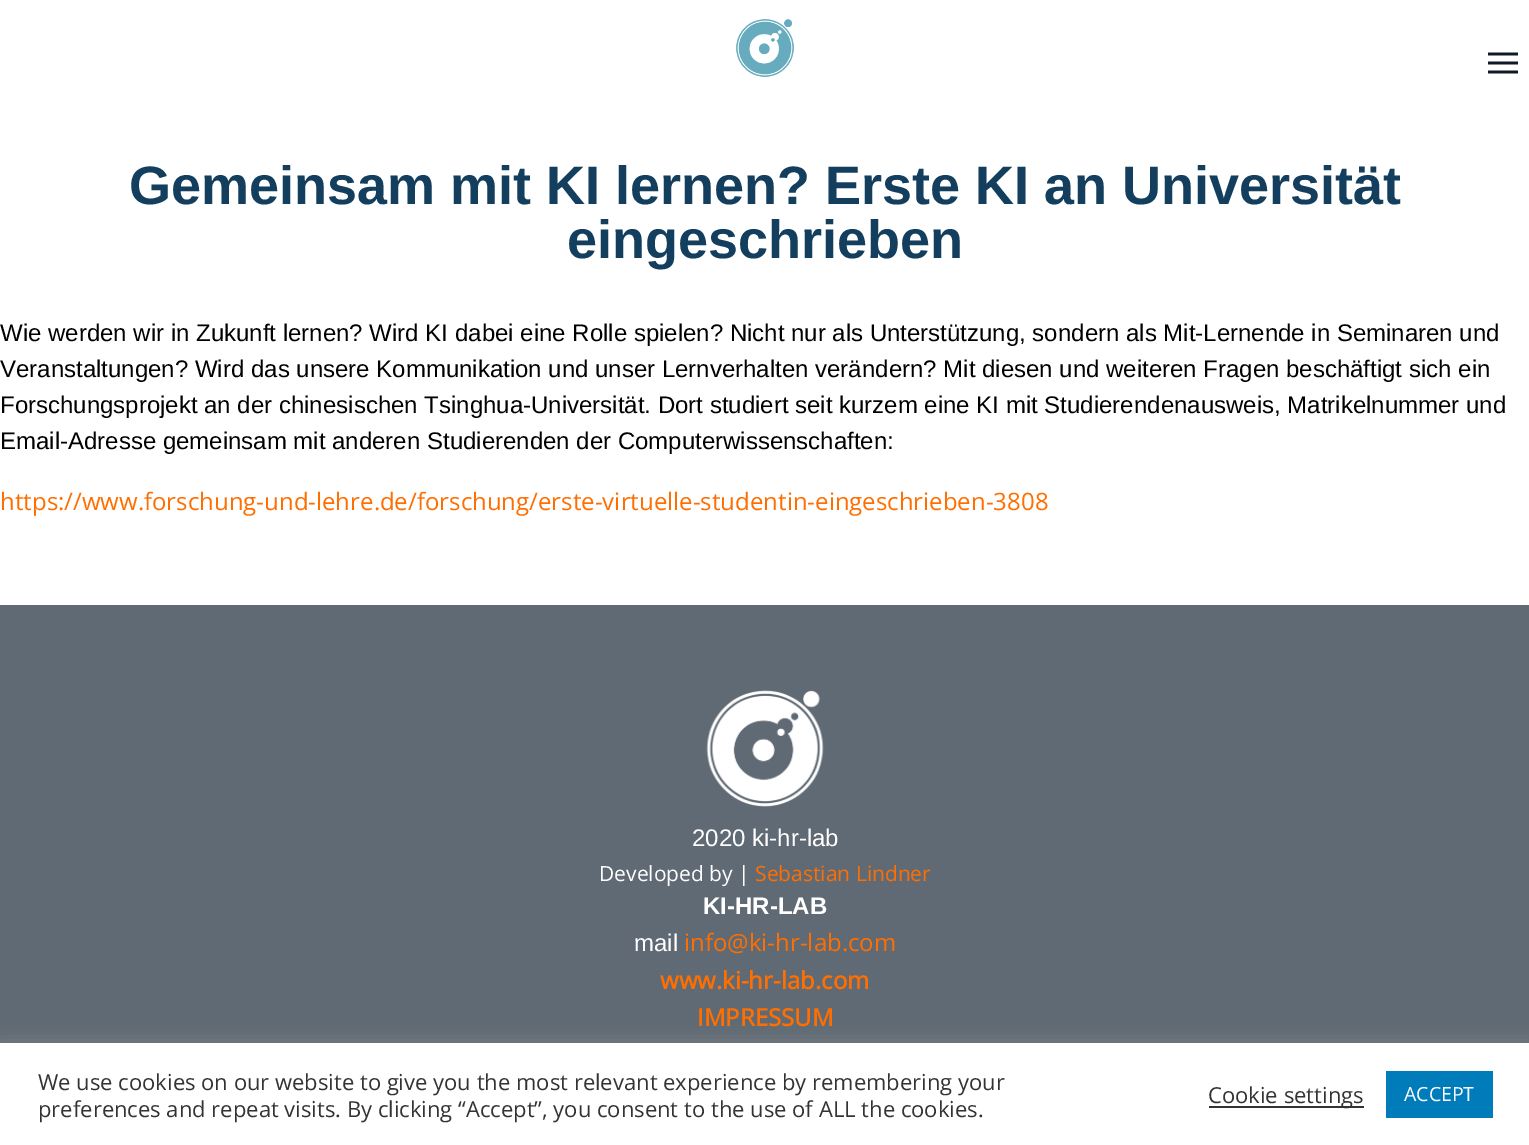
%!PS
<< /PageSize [1529 1145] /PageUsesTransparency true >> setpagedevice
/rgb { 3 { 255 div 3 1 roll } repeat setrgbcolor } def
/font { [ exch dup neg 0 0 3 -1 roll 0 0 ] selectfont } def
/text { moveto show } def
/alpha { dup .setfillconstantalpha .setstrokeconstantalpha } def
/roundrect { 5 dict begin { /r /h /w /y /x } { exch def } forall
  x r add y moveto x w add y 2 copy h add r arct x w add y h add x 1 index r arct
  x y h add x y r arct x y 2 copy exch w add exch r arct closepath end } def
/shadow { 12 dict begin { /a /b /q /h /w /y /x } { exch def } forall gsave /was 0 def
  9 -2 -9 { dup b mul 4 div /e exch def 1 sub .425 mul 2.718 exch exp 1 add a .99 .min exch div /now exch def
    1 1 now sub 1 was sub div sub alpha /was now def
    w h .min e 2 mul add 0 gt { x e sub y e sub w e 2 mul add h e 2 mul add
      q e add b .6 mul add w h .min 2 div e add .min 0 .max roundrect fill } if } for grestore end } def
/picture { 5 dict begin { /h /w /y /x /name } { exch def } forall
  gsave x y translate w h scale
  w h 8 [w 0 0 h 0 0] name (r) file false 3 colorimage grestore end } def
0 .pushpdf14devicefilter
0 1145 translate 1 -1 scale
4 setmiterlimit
255 255 255 rgb
0 0 1529 1145 rectfill
(img_01.rgb) 736 19 58 58 picture
(img_02.rgb) 1488 52 30 22 picture
96 106 116 rgb
0 605 1529 438 rectfill
(img_03.rgb) 706 690 118 117 picture
172 171 171 rgb
0 1041 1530 104 0 7.5 0.3 shadow
255 255 255 rgb
0 1043 1529 102 rectfill
51 51 51 rgb
1209 1106 155 2 rectfill
0 124 186 rgb
1386 1071 107 47 rectfill
/LiberationSans-Bold 54 font
19 62 94 rgb
(Gemeinsam mit KI lernen? Erste KI an Universität) 129 204 text
(eingeschrieben) 567 258 text
/LiberationSans-Regular 24 font
0 0 0 rgb
(Wie werden wir in Zukunft lernen? Wird KI dabei eine Rolle spielen? Nicht nur als Unterstützung, sondern als Mit-Lernende in Seminaren und) 0 341 text
(Veranstaltungen? Wird das unsere Kommunikation und unser Lernverhalten verändern? Mit diesen und weiteren Fragen beschäftigt sich ein) 0 377 text
(Forschungsprojekt an der chinesischen Tsinghua-Universität. Dort studiert seit kurzem eine KI mit Studierendenausweis, Matrikelnummer und) 0 413 text
(Email-Adresse gemeinsam mit anderen Studierenden der Computerwissenschaften:) 0 449 text
/OpenSans-Regular 24 font
255 110 0 rgb
(https://www.forschung-und-lehre.de/forschung/erste-virtuelle-studentin-eingeschrieben-3808) 0 510 text
/LiberationSans-Regular 24 font
255 255 255 rgb
(2020 ki-hr-lab) 692 846 text
/OpenSans-Regular 21 font
(Developed by |) 599 881 text
255 110 0 rgb
(Sebastian Lindner) 755 881 text
/LiberationSans-Bold 24 font
255 255 255 rgb
(KI-HR-LAB) 703 914 text
/LiberationSans-Regular 24 font
(mail) 634 951 text
/OpenSans-Regular 24 font
255 110 0 rgb
(info@ki-hr-lab.com) 684 951 text
/OpenSans-Bold 24 font
(www.ki-hr-lab.com) 660 989 text
(IMPRESSUM) 697 1026 text
/OpenSans-Regular 22 font
51 51 51 rgb
(We use cookies on our website to give you the most relevant experience by remembering your) 38 1090 text
(preferences and repeat visits. By clicking “Accept”, you consent to the use of ALL the cookies.) 38 1117 text
(Cookie settings) 1208 1103 text
/OpenSans-Regular 19.5 font
255 255 255 rgb
(ACCEPT) 1404 1101 text
.poppdf14devicefilter showpage
